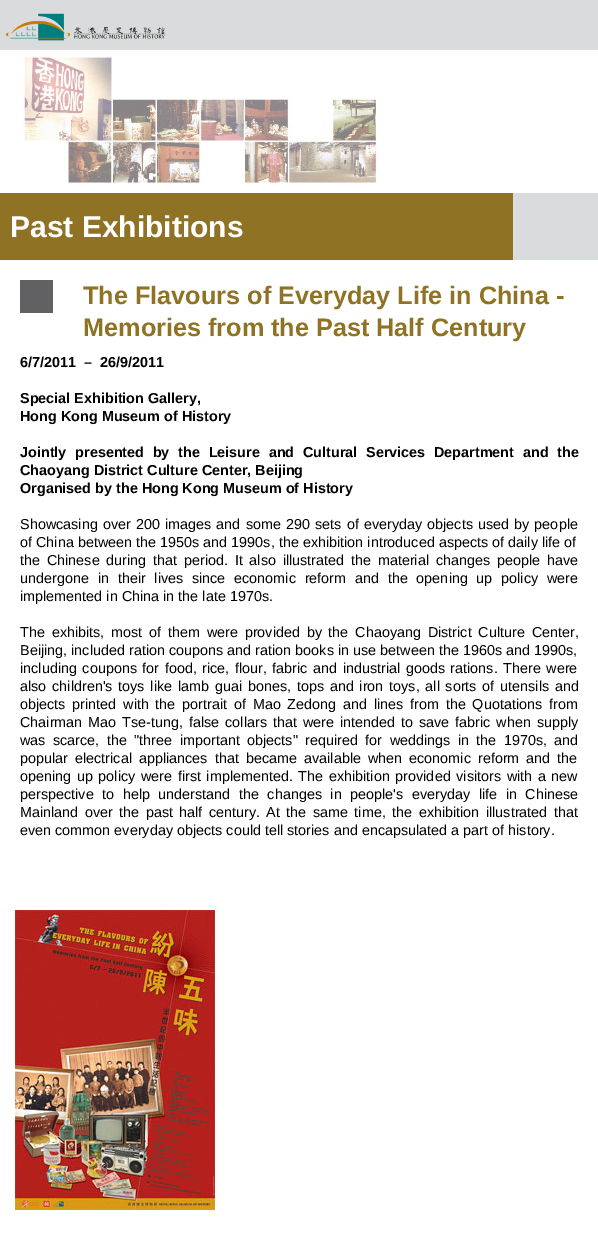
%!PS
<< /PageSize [598 1247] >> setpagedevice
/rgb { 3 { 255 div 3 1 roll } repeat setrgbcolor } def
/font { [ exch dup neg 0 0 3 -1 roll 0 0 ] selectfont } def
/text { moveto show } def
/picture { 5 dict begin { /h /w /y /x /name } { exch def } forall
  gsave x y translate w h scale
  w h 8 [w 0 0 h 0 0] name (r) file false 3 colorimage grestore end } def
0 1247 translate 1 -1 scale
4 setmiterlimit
255 255 255 rgb
0 0 598 1247 rectfill
218 219 221 rgb
0 0 598 50 rectfill
(img_01.rgb) 5 13 161 28 picture
(img_02.rgb) 23 56 354 128 picture
143 114 36 rgb
0 193 513 67 rectfill
218 219 221 rgb
513 193 85 67 rectfill
97 97 99 rgb
20 280 33 33 rectfill
(img_03.rgb) 15 910 200 300 picture
/LiberationSans-Bold 30 font
255 255 255 rgb
(Past Exhibitions) 10 237 text
/LiberationSans-Bold 25.25 font
143 114 36 rgb
(The Flavours of Everyday Life in China -) 83 304 text
(Memories from the Past Half Century) 83 336 text
/LiberationSans-Bold 14.4 font
0 0 0 rgb
(6/7/2011) 20 367 text
(–) 84 367 text
(26/9/2011) 100 367 text
(Special Exhibition Gallery,) 20 403 text
(Hong Kong Museum of History) 20 421 text
20 457 moveto 4.75 0 32 (Jointly presented by the Leisure and Cultural Services Department and the) widthshow
(Chaoyang District Culture Center, Beijing) 20 475 text
(Organised by the Hong Kong Museum of History) 20 493 text
/LiberationSans-Regular 14.4 font
20 529 moveto 1.1 0 32 (Showcasing over 200 images and some 290 sets of everyday objects used by people) widthshow
(of China between the 1950s and 1990s, the exhibition introduced aspects of daily life of) 20 547 text
20 565 moveto 2.75 0 32 (the Chinese during that period. It also illustrated the material changes people have) widthshow
20 583 moveto 4.75 0 32 (undergone in their lives since economic reform and the opening up policy were) widthshow
(implemented in China in the late 1970s.) 20 601 text
20 637 moveto 2.75 0 32 (The exhibits, most of them were provided by the Chaoyang District Culture Center,) widthshow
(Beijing, included ration coupons and ration books in use between the 1960s and 1990s,) 20 655 text
20 673 moveto 1.5 0 32 (including coupons for food, rice, flour, fabric and industrial goods rations. There were) widthshow
20 691 moveto 1.75 0 32 (also children's toys like lamb guai bones, tops and iron toys, all sorts of utensils and) widthshow
20 709 moveto 2.75 0 32 (objects printed with the portrait of Mao Zedong and lines from the Quotations from) widthshow
20 727 moveto 1.9 0 32 (Chairman Mao Tse-tung, false collars that were intended to save fabric when supply) widthshow
20 745 moveto 3.4 0 32 (was scarce, the "three important objects" required for weddings in the 1970s, and) widthshow
20 763 moveto 3 0 32 (popular electrical appliances that became available when economic reform and the) widthshow
20 781 moveto 1.6 0 32 (opening up policy were first implemented. The exhibition provided visitors with a new) widthshow
20 799 moveto 4.5 0 32 (perspective to help understand the changes in people's everyday life in Chinese) widthshow
20 817 moveto 2.4 0 32 (Mainland over the past half century. At the same time, the exhibition illustrated that) widthshow
(even common everyday objects could tell stories and encapsulated a part of history.) 20 835 text
showpage
